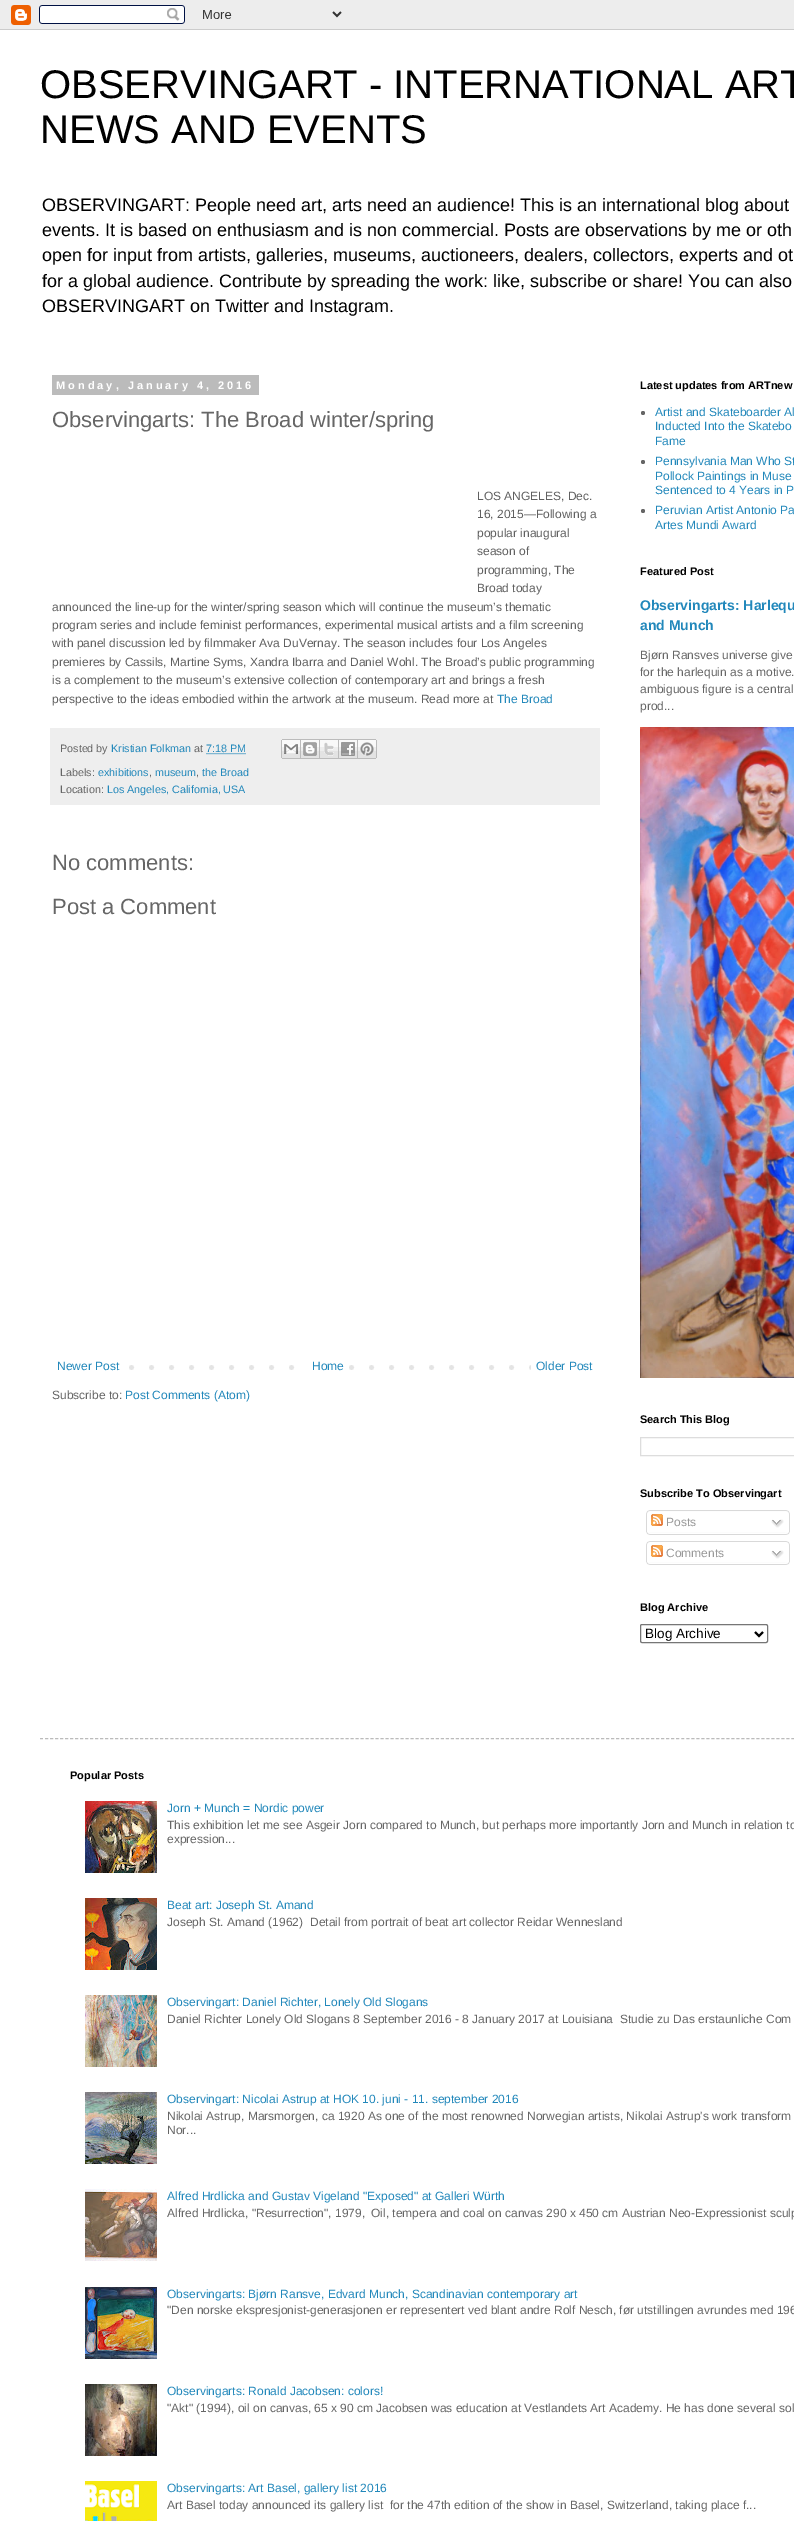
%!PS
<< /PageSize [794 2521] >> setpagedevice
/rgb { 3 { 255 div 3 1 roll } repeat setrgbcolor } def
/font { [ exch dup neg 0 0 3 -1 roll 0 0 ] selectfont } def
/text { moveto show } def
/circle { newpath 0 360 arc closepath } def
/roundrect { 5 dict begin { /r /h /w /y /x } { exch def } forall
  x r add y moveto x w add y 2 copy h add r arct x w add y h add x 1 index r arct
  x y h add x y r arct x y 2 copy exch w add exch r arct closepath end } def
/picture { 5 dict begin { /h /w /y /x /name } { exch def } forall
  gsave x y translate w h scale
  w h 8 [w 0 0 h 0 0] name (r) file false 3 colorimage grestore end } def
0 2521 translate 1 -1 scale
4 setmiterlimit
255 255 255 rgb
0 0 794 2521 rectfill
(img_01.rgb) 0 0 794 30 picture
187 187 187 rgb
52 375 207 20 rectfill
238 238 238 rgb
50 728 550 77 rectfill
34 136 187 rgb
[1 1] 0 setdash
206.5 753.5 moveto 40 0 rlineto stroke
(img_02.rgb) 281 739 20 20 picture
(img_03.rgb) 301 739 19 20 picture
(img_04.rgb) 320 739 19 20 picture
(img_05.rgb) 339 739 19 20 picture
(img_06.rgb) 358 739 19 20 picture
(img_07.rgb) 129 1365 402 5 picture
255 255 255 rgb
309 1365 26 5 rectfill
102 102 102 rgb
643 413 2 circle fill
643 462 2 circle fill
643 511 2 circle fill
(img_08.rgb) 640 727 154 651 picture
221 221 221 rgb
[] 0 setdash
640.5 1437.5 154 18 rectstroke
(img_09.rgb) 646 1510 144 22 picture
(img_10.rgb) 651 1514 12 12 picture
(img_11.rgb) 771 1519 13 9 picture
(img_12.rgb) 646 1532 144 3 picture
(img_13.rgb) 646 1541 144 21 picture
(img_10.rgb) 651 1545 12 12 picture
(img_11.rgb) 771 1550 13 9 picture
(img_12.rgb) 646 1562 144 3 picture
118 118 118 rgb
640.5 1624.5 127 18 1.5 roundrect stroke
0 0 0 rgb
2 setlinewidth
755 1632 moveto 4 4 rlineto 4 -4 rlineto stroke
187 187 187 rgb
1 setlinewidth
[3 2.01] 0 setdash
40 1738.5 moveto 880 0 rlineto stroke
(img_14.rgb) 85 1801 72 72 picture
(img_15.rgb) 85 1898 72 72 picture
(img_16.rgb) 85 1995 72 72 picture
(img_17.rgb) 85 2092 72 72 picture
(img_18.rgb) 85 2189 72 72 picture
(img_19.rgb) 85 2287 72 72 picture
(img_20.rgb) 85 2384 72 72 picture
(img_21.rgb) 85 2481 72 40 picture
/LiberationSans-Regular 40 font
0 0 0 rgb
(OBSERVINGART - INTERNATIONAL ART) 40 98 text
(NEWS AND EVENTS) 40 143 text
/LiberationSans-Regular 18 font
(OBSERVINGART: People need art, arts need an audience! This is an international blog about) 42 211 text
(events. It is based on enthusiasm and is non commercial. Posts are observations by me or oth) 42 236 text
(open for input from artists, galleries, museums, auctioneers, dealers, collectors, experts and ot) 42 261 text
(for a global audience. Contribute by spreading the work: like, subscribe or share! You can also) 42 287 text
(OBSERVINGART on Twitter and Instagram.) 42 312 text
/LiberationSans-Bold 11 font
255 255 255 rgb
56 389 moveto 3 0 (Monday, January 4, 2016) ashow
/LiberationSans-Regular 22 font
102 102 102 rgb
(Observingarts: The Broad winter/spring) 52 427 text
/LiberationSans-Regular 12 font
96 96 96 rgb
(LOS ANGELES, Dec.) 477 500 text
(16, 2015—Following a) 477 518 text
(popular inaugural) 477 537 text
(season of) 477 555 text
(programming, The) 477 574 text
(Broad today) 477 592 text
(announced the line-up for the winter/spring season which will continue the museum’s thematic) 52 611 text
(program series and include feminist performances, experimental musical artists and a film screening) 52 629 text
(with panel discussion led by filmmaker Ava DuVernay. The season includes four Los Angeles) 52 647 text
(premieres by Cassils, Martine Syms, Xandra Ibarra and Daniel Wohl. The Broad’s public programming) 52 666 text
(is a complement to the museum’s extensive collection of contemporary art and brings a fresh) 52 684 text
(perspective to the ideas embodied within the artwork at the museum. Read more at) 52 703 text
34 136 187 rgb
(The Broad) 497 703 text
/LiberationSans-Regular 10.75 font
102 102 102 rgb
(Posted by) 60 752 text
34 136 187 rgb
(Kristian Folkman) 111 752 text
102 102 102 rgb
(at) 194 752 text
34 136 187 rgb
(7:18 PM) 206 752 text
102 102 102 rgb
(Labels:) 60 776 text
34 136 187 rgb
(exhibitions) 98 776 text
102 102 102 rgb
(,) 149 776 text
34 136 187 rgb
(museum) 155 776 text
102 102 102 rgb
(,) 196 776 text
34 136 187 rgb
(the Broad) 202 776 text
102 102 102 rgb
(Location:) 60 793 text
34 136 187 rgb
(Los Angeles, California, USA) 107 793 text
/LiberationSans-Regular 22 font
102 102 102 rgb
(No comments:) 52 870 text
(Post a Comment) 52 914 text
/LiberationSans-Regular 12 font
34 136 187 rgb
(Newer Post) 57 1370 text
(Home) 312 1370 text
(Older Post) 536 1370 text
102 102 102 rgb
(Subscribe to:) 52 1399 text
34 136 187 rgb
(Post Comments \(Atom\)) 125 1399 text
/LiberationSans-Bold 11 font
0 0 0 rgb
(Latest updates from ARTnew) 640 389 text
/LiberationSans-Regular 12 font
34 136 187 rgb
(Artist and Skateboarder Al) 655 416 text
(Inducted Into the Skatebo) 655 430 text
(Fame) 655 445 text
(Pennsylvania Man Who St) 655 465 text
(Pollock Paintings in Muse) 655 480 text
(Sentenced to 4 Years in P) 655 494 text
(Peruvian Artist Antonio Pa) 655 514 text
(Artes Mundi Award) 655 529 text
/LiberationSans-Bold 11 font
0 0 0 rgb
(Featured Post) 640 575 text
/LiberationSans-Bold 14 font
34 136 187 rgb
(Observingarts: Harlequ) 640 610 text
(and Munch) 640 630 text
/LiberationSans-Regular 12 font
102 102 102 rgb
(Bjørn Ransves universe give) 640 659 text
(for the harlequin as a motive.) 640 676 text
(ambiguous figure is a central) 640 693 text
(prod...) 640 710 text
/LiberationSans-Bold 11 font
0 0 0 rgb
(Search This Blog) 640 1423 text
(Subscribe To Observingart) 640 1497 text
/LiberationSans-Regular 12 font
153 153 153 rgb
(Posts) 666 1526 text
(Comments) 666 1557 text
/LiberationSans-Bold 11 font
0 0 0 rgb
(Blog Archive) 640 1611 text
/LiberationSans-Regular 13.5 font
(Blog Archive) 645 1638 text
/LiberationSans-Bold 11 font
(Popular Posts) 70 1779 text
/LiberationSans-Regular 12 font
34 136 187 rgb
(Jorn + Munch = Nordic power) 167 1812 text
102 102 102 rgb
(This exhibition let me see Asgeir Jorn compared to Munch, but perhaps more importantly Jorn and Munch in relation to) 167 1829 text
(expression...) 167 1843 text
34 136 187 rgb
(Beat art: Joseph St. Amand) 167 1909 text
102 102 102 rgb
(Joseph St. Amand \(1962\)) 167 1926 text
(Detail from portrait of beat art collector Reidar Wennesland) 310 1926 text
34 136 187 rgb
(Observingart: Daniel Richter, Lonely Old Slogans) 167 2006 text
102 102 102 rgb
(Daniel Richter Lonely Old Slogans 8 September 2016 - 8 January 2017 at Louisiana) 167 2023 text
(Studie zu Das erstaunliche Com) 620 2023 text
34 136 187 rgb
(Observingart: Nicolai Astrup at HOK 10. juni - 11. september 2016) 167 2103 text
102 102 102 rgb
(Nikolai Astrup, Marsmorgen, ca 1920 As one of the most renowned Norwegian artists, Nikolai Astrup's work transform) 167 2120 text
(Nor...) 167 2134 text
34 136 187 rgb
(Alfred Hrdlicka and Gustav Vigeland "Exposed" at Galleri Würth) 167 2200 text
102 102 102 rgb
(Alfred Hrdlicka, "Resurrection", 1979,) 167 2217 text
(Oil, tempera and coal on canvas 290 x 450 cm Austrian Neo-Expressionist sculp) 371 2217 text
34 136 187 rgb
(Observingarts: Bjørn Ransve, Edvard Munch, Scandinavian contemporary art) 167 2298 text
102 102 102 rgb
("Den norske ekspresjonist-generasjonen er representert ved blant andre Rolf Nesch, før utstillingen avrundes med 196) 167 2314 text
34 136 187 rgb
(Observingarts: Ronald Jacobsen: colors!) 167 2395 text
102 102 102 rgb
("Akt" \(1994\), oil on canvas, 65 x 90 cm Jacobsen was education at Vestlandets Art Academy. He has done several sol) 167 2412 text
34 136 187 rgb
(Observingarts: Art Basel, gallery list 2016) 167 2492 text
102 102 102 rgb
(Art Basel today announced its gallery list) 167 2509 text
(for the 47th edition of the show in Basel, Switzerland, taking place f...) 390 2509 text
showpage
